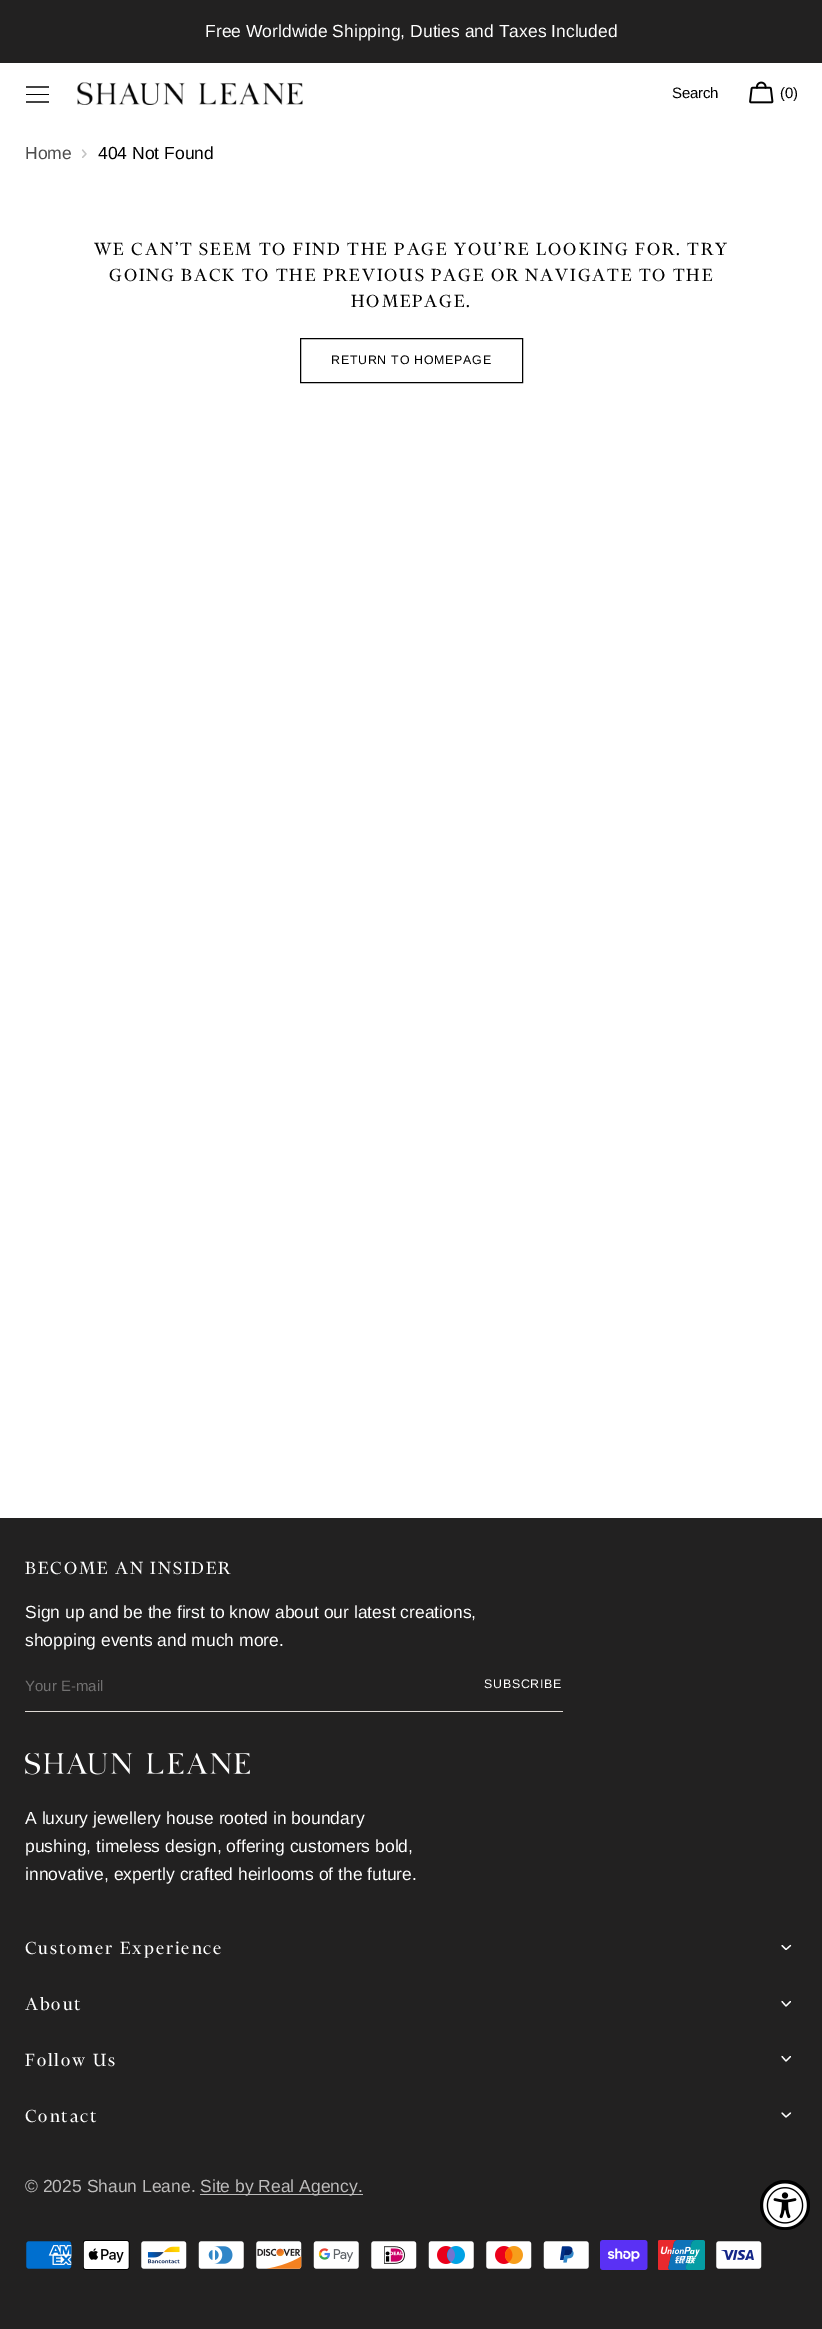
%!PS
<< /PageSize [822 2329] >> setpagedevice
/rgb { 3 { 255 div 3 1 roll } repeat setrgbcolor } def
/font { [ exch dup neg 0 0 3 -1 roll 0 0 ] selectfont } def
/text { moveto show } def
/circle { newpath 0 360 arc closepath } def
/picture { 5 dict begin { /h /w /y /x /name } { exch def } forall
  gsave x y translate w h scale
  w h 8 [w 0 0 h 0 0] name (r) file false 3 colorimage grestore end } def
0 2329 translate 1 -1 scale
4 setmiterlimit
255 255 255 rgb
0 0 822 2329 rectfill
34 33 33 rgb
0 0 822 63 rectfill
0 0 0 rgb
1.2 setlinewidth
26 87 moveto 23 0 rlineto stroke
26 94 23 1 rectfill
26 102 moveto 23 0 rlineto stroke
(img_01.rgb) 77 82 226 23 picture
(img_02.rgb) 749 81 25 23 picture
195 195 195 rgb
1 setlinecap
1 setlinejoin
82.5 157.5 moveto 3.5 -3.5 rlineto -3.5 -4 rlineto stroke
0 0 0 rgb
1 setlinewidth
0 setlinecap
0 setlinejoin
300.5 338.5 222 44 rectstroke
34 33 33 rgb
0 1518 822 811 rectfill
222 217 212 rgb
25 1711 538 1 rectfill
(img_03.rgb) 25 1753 225 22 picture
255 255 255 rgb
1.2 setlinewidth
1 setlinecap
1 setlinejoin
790.5 1945.5 moveto -4.5 4 rlineto -4 -4 rlineto stroke
790.5 2001.5 moveto -4.5 4.5 rlineto -4 -4.5 rlineto stroke
790.5 2056.5 moveto -4.5 4.5 rlineto -4 -4.5 rlineto stroke
790.5 2113 moveto -4.5 4 rlineto -4 -4 rlineto stroke
189 188 188 rgb
200 2194 163 1 rectfill
(img_04.rgb) 26 2241 46 28 picture
(img_05.rgb) 83 2240 47 30 picture
(img_06.rgb) 141 2241 46 28 picture
(img_07.rgb) 198 2241 46 28 picture
(img_08.rgb) 256 2241 46 28 picture
(img_09.rgb) 313 2241 46 28 picture
(img_10.rgb) 371 2241 46 28 picture
(img_11.rgb) 428 2241 46 28 picture
(img_12.rgb) 486 2241 46 28 picture
(img_13.rgb) 543 2241 46 28 picture
(img_14.rgb) 600 2240 48 30 picture
(img_15.rgb) 658 2240 47 30 picture
(img_16.rgb) 716 2241 46 28 picture
0 0 0 rgb
785 2205 25 circle fill
(img_17.rgb) 763 2183 44 45 picture
/Arimo-Regular 17.5 font
255 255 255 rgb
(Free Worldwide Shipping, Duties and Taxes Included) 205 37 text
/Arimo-Regular 15 font
0 0 0 rgb
672 98 moveto -0.25 0 (Search) ashow
780 98 moveto -0.25 0 (\(0\)) ashow
/Arimo-Regular 17.5 font
77 77 77 rgb
(Home) 25 159 text
0 0 0 rgb
(404 Not Found) 98 159 text
/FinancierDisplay-Regular 20 font
94 255 moveto 2 0 (WE CAN’T SEEM TO FIND THE PAGE YOU’RE LOOKING FOR. TRY) ashow
109 281 moveto 2 0 (GOING BACK TO THE PREVIOUS PAGE OR NAVIGATE TO THE) ashow
351 307 moveto 2 0 (HOMEPAGE.) ashow
/Arimo-Regular 12.4 font
331 364 moveto 0.75 0 (RETURN TO HOMEPAGE) ashow
/FinancierDisplay-Regular 20 font
255 255 255 rgb
25 1574 moveto 2 0 (BECOME AN INSIDER) ashow
/Arimo-Regular 17.5 font
(Sign up and be the first to know about our latest creations,) 25 1618 text
(shopping events and much more.) 25 1646 text
/Arimo-Regular 15 font
114 113 113 rgb
(Your E-mail) 25 1691 text
/Arimo-Regular 12.4 font
255 255 255 rgb
484 1688 moveto 0.75 0 (SUBSCRIBE) ashow
/Arimo-Regular 17.5 font
(A luxury jewellery house rooted in boundary) 25 1824 text
(pushing, timeless design, offering customers bold,) 25 1852 text
(innovative, expertly crafted heirlooms of the future.) 25 1880 text
/FinancierDisplay-Regular 20 font
25 1954 moveto 2 0 (Customer Experience) ashow
25 2010 moveto 2 0 (About) ashow
25 2066 moveto 2 0 (Follow Us) ashow
25 2122 moveto 2 0 (Contact) ashow
/Arimo-Regular 17.5 font
189 188 188 rgb
(© 2025 Shaun Leane.) 25 2192 text
(Site by Real Agency.) 200 2192 text
showpage
